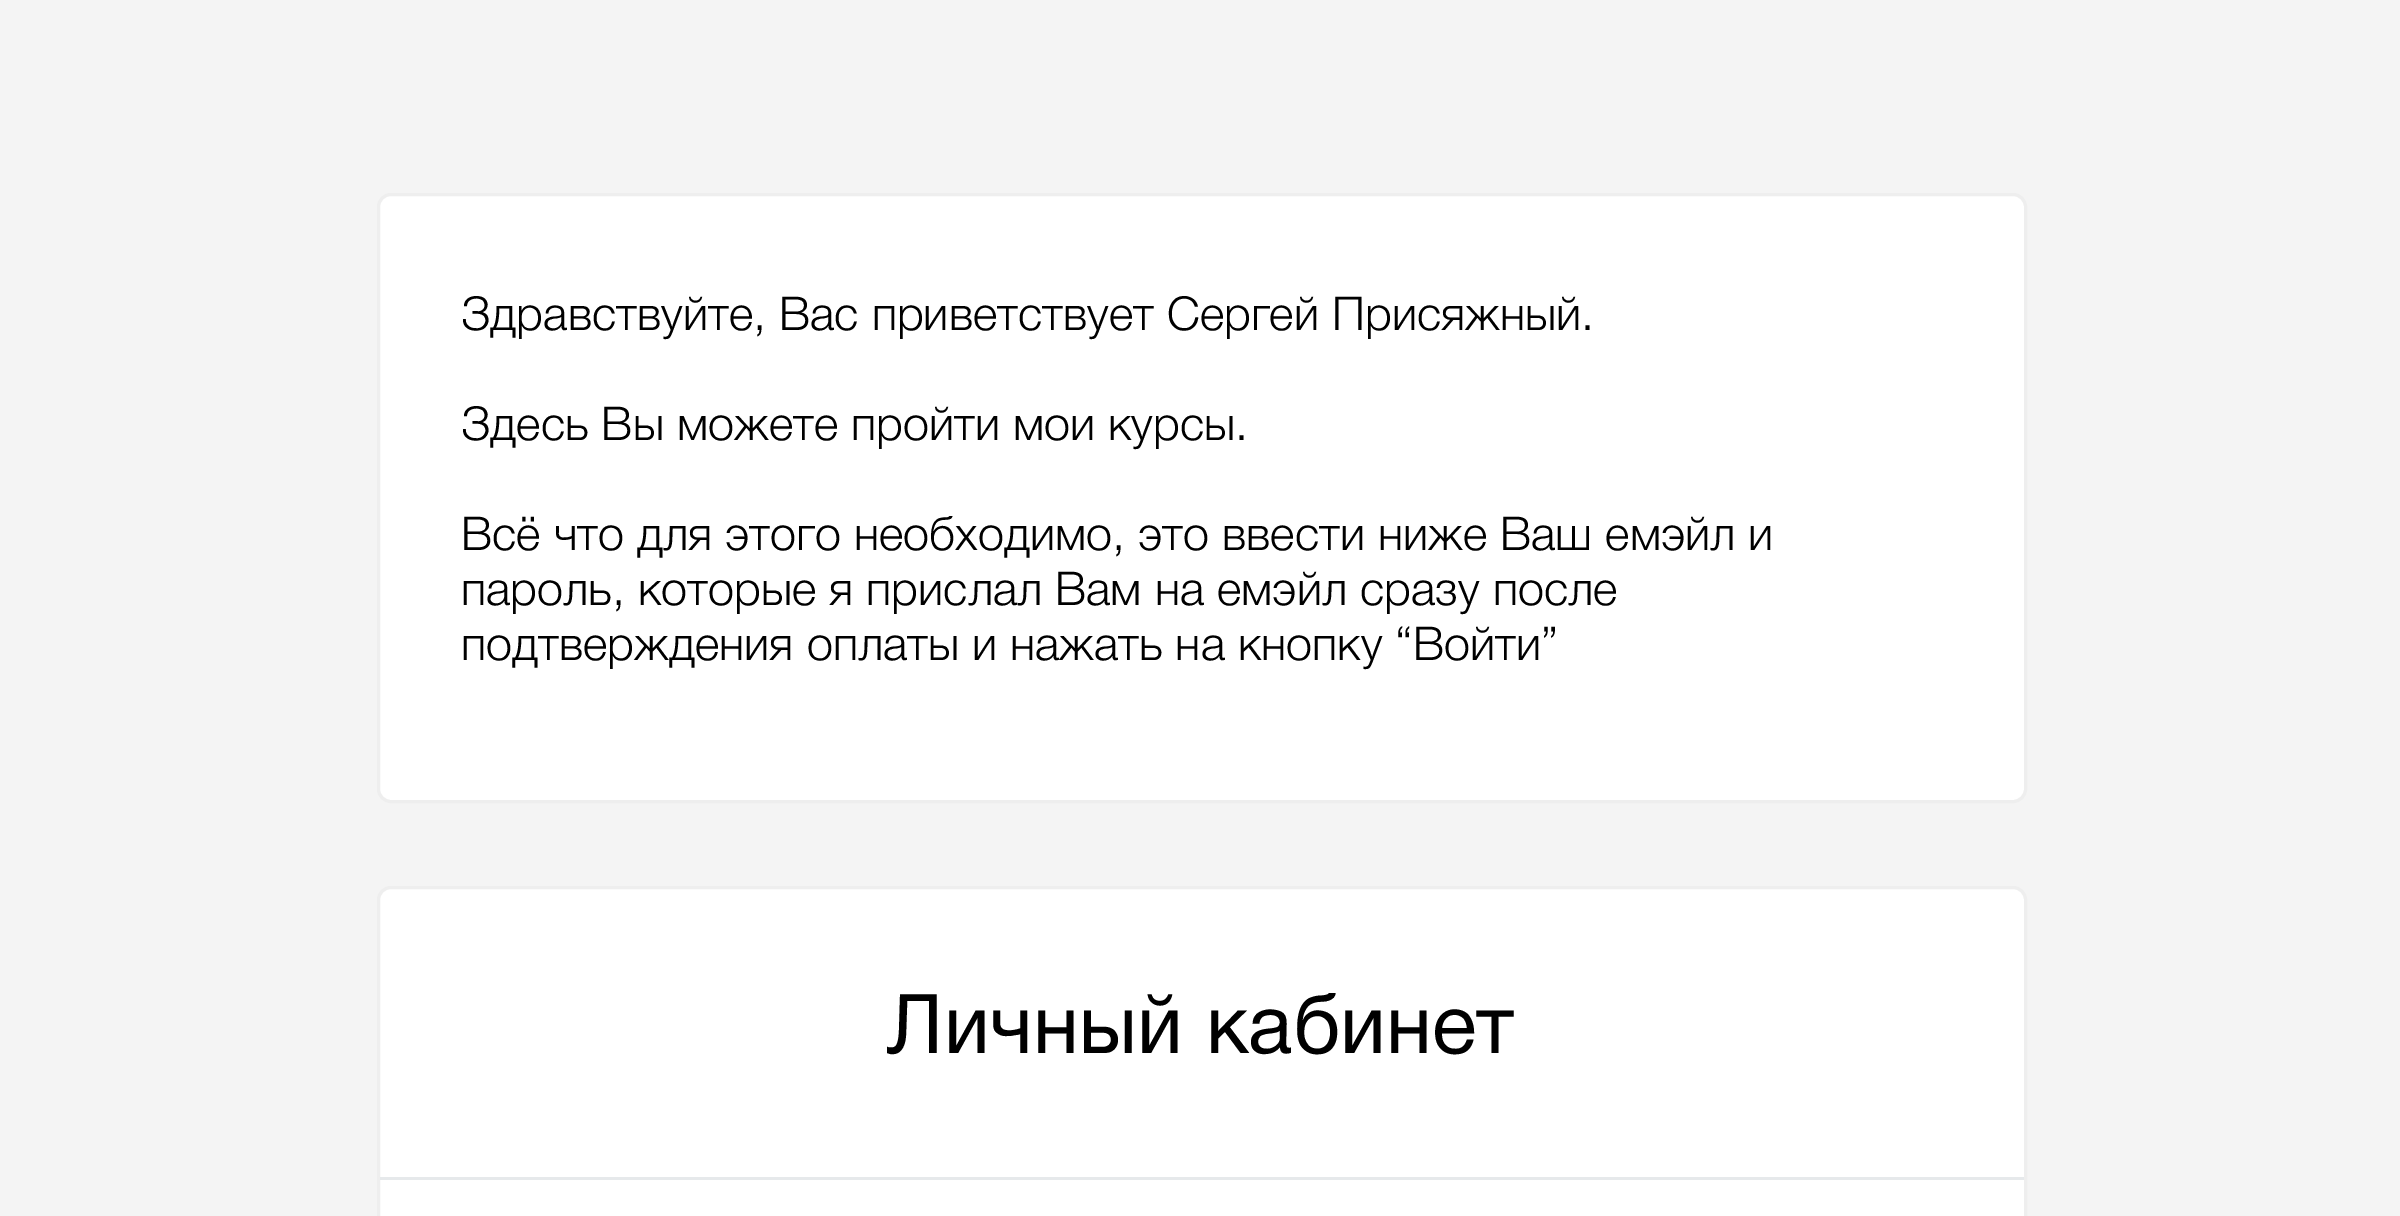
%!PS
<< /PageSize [2400 1216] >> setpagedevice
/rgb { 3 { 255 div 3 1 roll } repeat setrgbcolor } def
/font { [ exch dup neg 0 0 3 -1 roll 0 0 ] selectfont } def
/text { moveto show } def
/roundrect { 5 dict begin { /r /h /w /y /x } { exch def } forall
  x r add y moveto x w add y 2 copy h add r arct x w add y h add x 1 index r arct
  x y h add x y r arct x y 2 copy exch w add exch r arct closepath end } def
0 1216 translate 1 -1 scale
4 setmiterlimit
244 244 244 rgb
0 0 2400 1216 rectfill
255 255 255 rgb
378.5 194.5 1647 607 12.5 roundrect gsave fill grestore
238 238 238 rgb
3 setlinewidth
stroke
255 255 255 rgb
378.5 887.5 1647 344 12.5 roundrect gsave fill grestore
238 238 238 rgb
stroke
230 233 235 rgb
380 1177 1644 3 rectfill
/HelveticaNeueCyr-Light 46.75 font
0 0 0 rgb
(Здравствуйте, Вас приветствует Сергей Присяжный.) 461 330 text
(Здесь Вы можете пройти мои курсы.) 461 440 text
(Всё что для этого необходимо, это ввести ниже Ваш емэйл и) 461 550 text
(пароль, которые я прислал Вам на емэйл сразу после) 461 605 text
(подтверждения оплаты и нажать на кнопку “Войти”) 461 660 text
/HelveticaNeueCyr-Regular 82.5 font
(Личный кабинет) 887 1053 text
showpage
